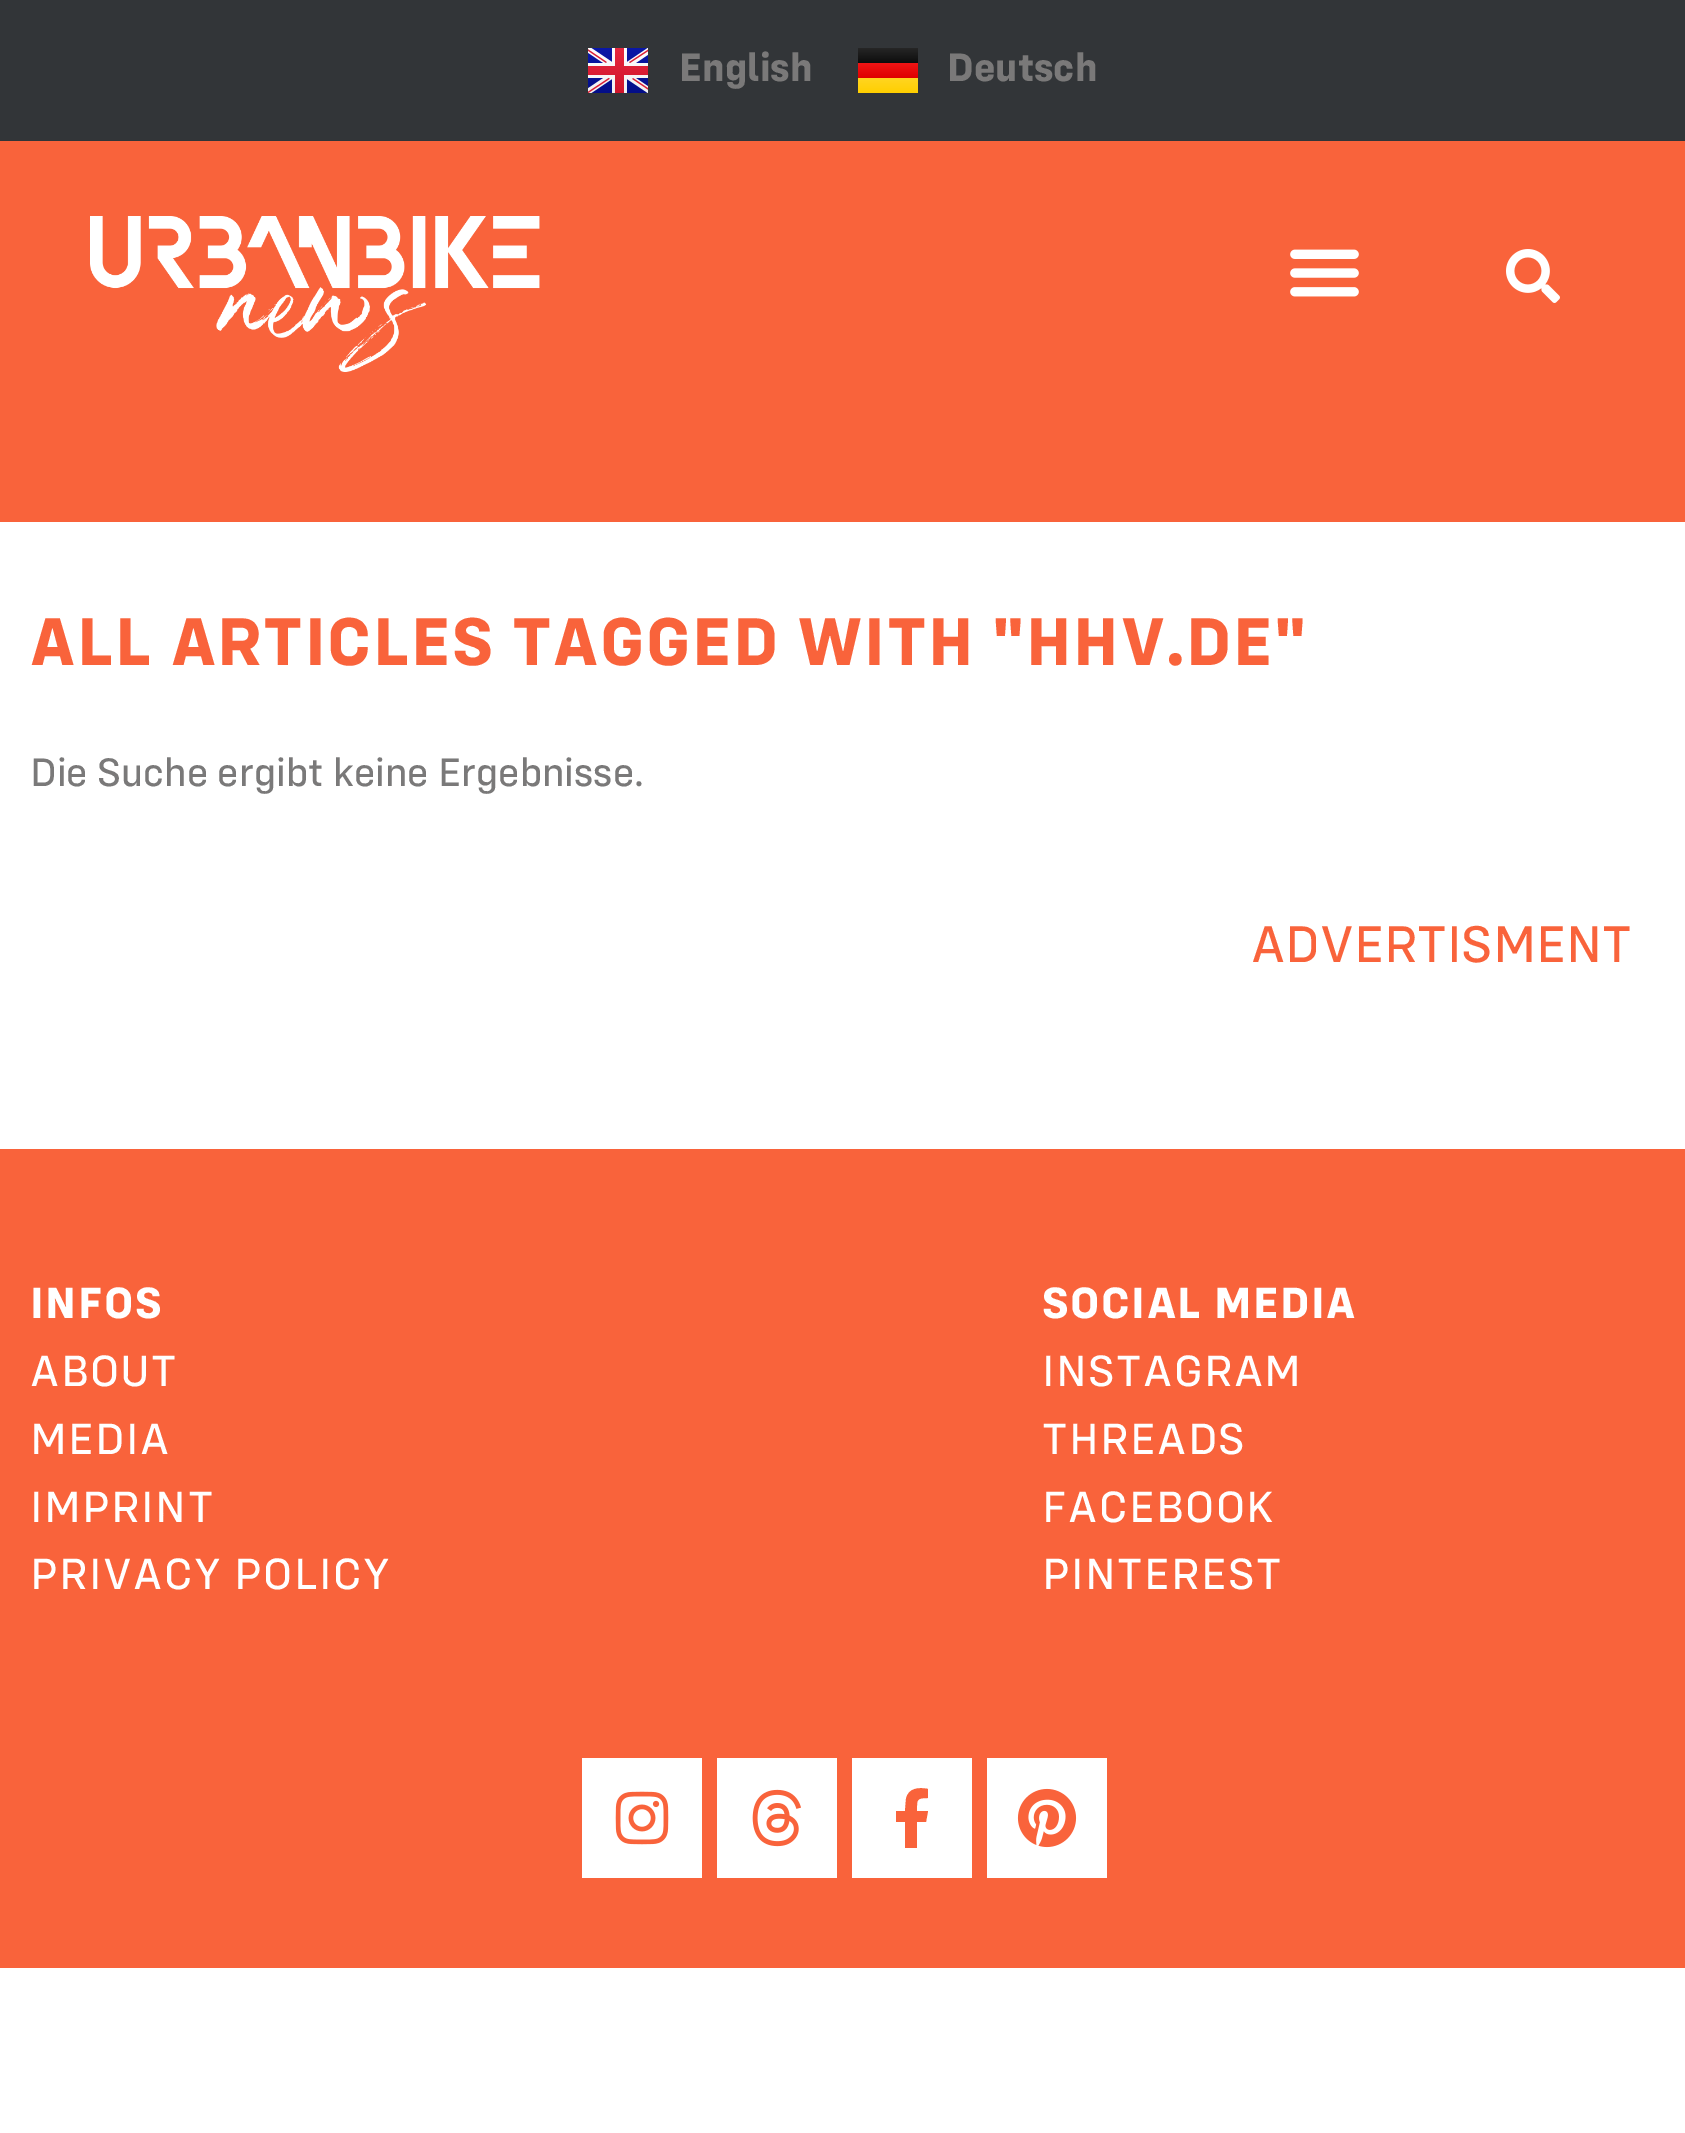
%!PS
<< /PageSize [1685 2133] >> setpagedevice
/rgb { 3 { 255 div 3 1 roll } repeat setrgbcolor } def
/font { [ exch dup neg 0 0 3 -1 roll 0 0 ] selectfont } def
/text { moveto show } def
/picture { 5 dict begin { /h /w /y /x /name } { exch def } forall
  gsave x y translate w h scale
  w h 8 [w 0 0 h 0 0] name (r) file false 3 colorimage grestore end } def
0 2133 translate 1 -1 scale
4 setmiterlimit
255 255 255 rgb
0 0 1685 2133 rectfill
50 53 56 rgb
0 0 1685 141 rectfill
(img_01.rgb) 588 48 60 45 picture
gsave 858 48 moveto 60 0 rlineto 0 15 rlineto -60 0 rlineto closepath clip newpath
<< /ShadingType 2 /ColorSpace /DeviceRGB /Coords [887 48 887 63] /Extend [true true] /Function << /FunctionType 2 /Domain [0 1] /C0 [0.149 0.149 0.149] /C1 [0.051 0.051 0.051] /N 1 >> >> shfill grestore
gsave 858 63 moveto 60 0 rlineto 0 15 rlineto -60 0 rlineto closepath clip newpath
<< /ShadingType 2 /ColorSpace /DeviceRGB /Coords [887 63 887 78] /Extend [true true] /Function << /FunctionType 2 /Domain [0 1] /C0 [0.941 0.082 0.082] /C1 [0.871 0 0] /N 1 >> >> shfill grestore
gsave 858 78 moveto 60 0 rlineto 0 15 rlineto -60 0 rlineto closepath clip newpath
<< /ShadingType 2 /ColorSpace /DeviceRGB /Coords [887 78 887 93] /Extend [true true] /Function << /FunctionType 2 /Domain [0 1] /C0 [1 0.835 0.129] /C1 [1 0.812 0] /N 1 >> >> shfill grestore
249 99 59 rgb
0 141 1685 381 rectfill
(img_02.rgb) 90 216 450 156 picture
(img_03.rgb) 1290 249 69 48 picture
(img_04.rgb) 1506 249 54 54 picture
0 1149 1685 819 rectfill
255 255 255 rgb
582 1758 120 120 rectfill
(img_05.rgb) 615 1791 54 54 picture
717 1758 120 120 rectfill
(img_06.rgb) 752 1789 49 58 picture
852 1758 120 120 rectfill
249 99 59 rgb
926 1822 moveto 2 -11 rlineto -11 0 rlineto 0 -11 -1 -13 11 -13 rcurveto 0 -9 rlineto -9 -2 -20 -1 -22 10 rcurveto -1 12 rlineto -9 0 rlineto 0 11 rlineto 9 0 rlineto 0 26 rlineto 12 0 rlineto 0 -26 rlineto closepath fill
255 255 255 rgb
987 1758 120 120 rectfill
(img_07.rgb) 1017 1788 60 60 picture
/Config-Bold 41 font
122 121 121 rgb
(English) 679 81 text
(Deutsch) 947 81 text
/Config-Bold 69.75 font
249 99 59 rgb
30 665 moveto 1.5 0 (ALL ARTICLES TAGGED WITH "HHV.DE") ashow
/Config-Regular 41 font
122 121 121 rgb
(Die Suche ergibt keine Ergebnisse.) 30 786 text
/Config-Regular 53.25 font
249 99 59 rgb
(ADVERTISMENT) 1251 962 text
/Config-Bold 45.25 font
255 255 255 rgb
30 1318 moveto 1.5 0 (INFOS) ashow
/Config-Regular 45.25 font
30 1386 moveto 1.5 0 (ABOUT) ashow
30 1454 moveto 1.5 0 (MEDIA) ashow
30 1522 moveto 1.5 0 (IMPRINT) ashow
30 1589 moveto 1.5 0 (PRIVACY POLICY) ashow
/Config-Bold 45.25 font
1042 1318 moveto 1.5 0 (SOCIAL MEDIA) ashow
/Config-Regular 45.25 font
1042 1386 moveto 1.5 0 (INSTAGRAM) ashow
1042 1454 moveto 1.5 0 (THREADS) ashow
1042 1522 moveto 1.5 0 (FACEBOOK) ashow
1042 1589 moveto 1.5 0 (PINTEREST) ashow
showpage
